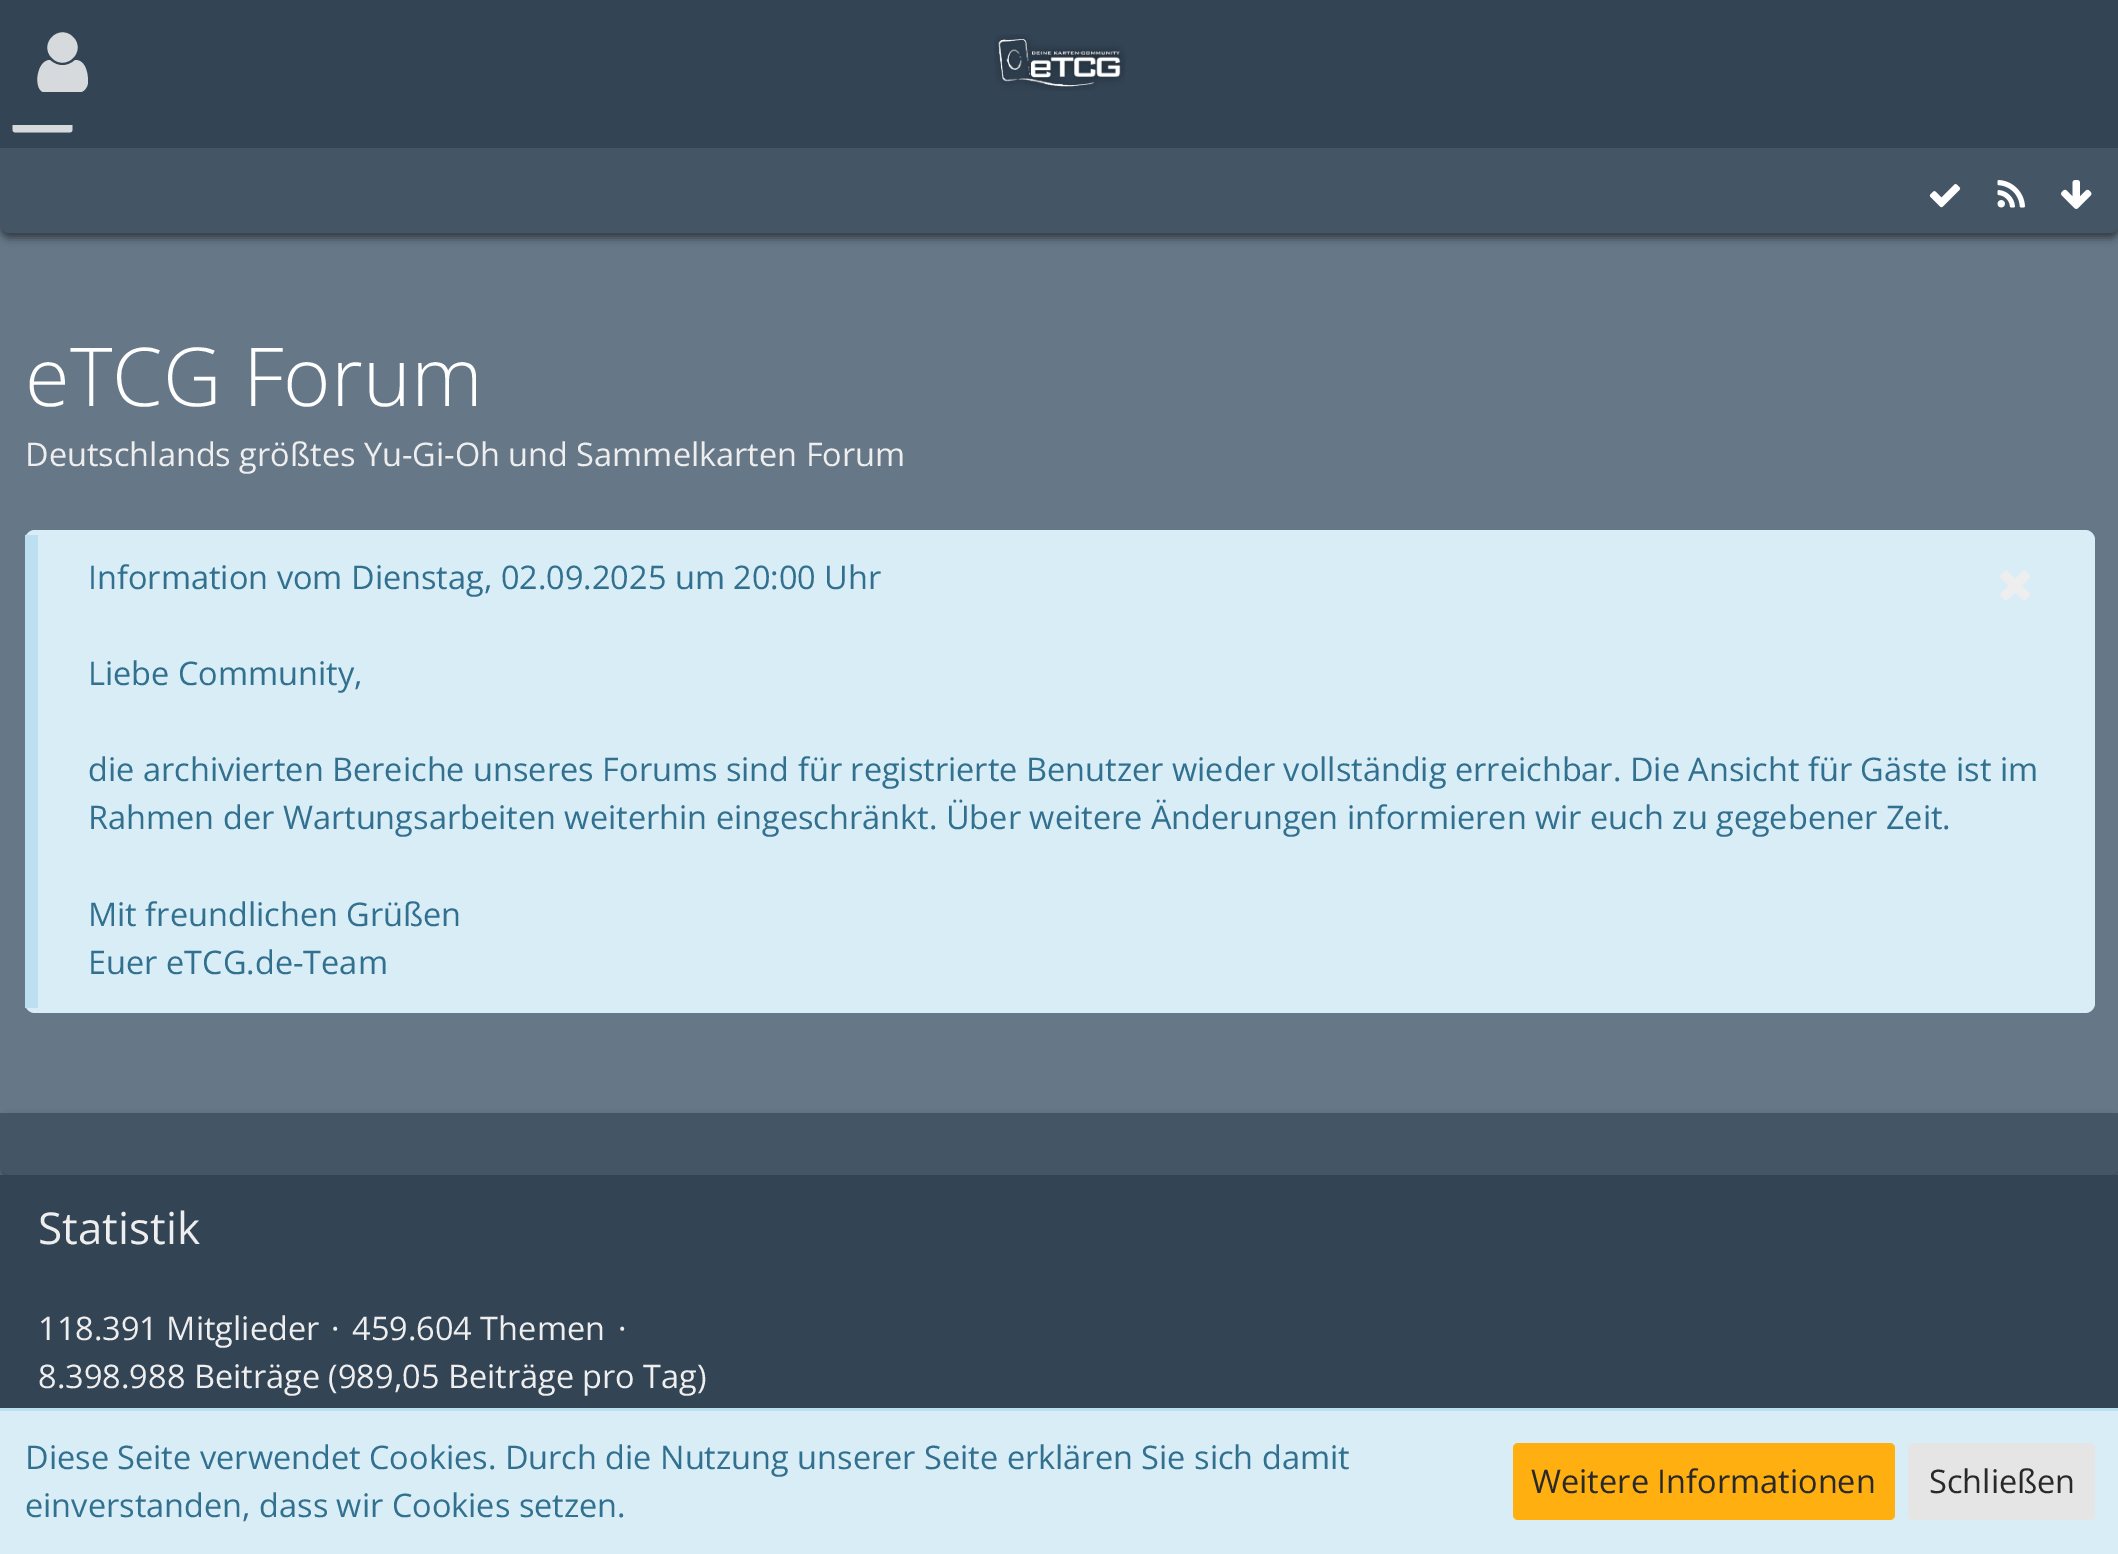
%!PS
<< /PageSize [2118 1554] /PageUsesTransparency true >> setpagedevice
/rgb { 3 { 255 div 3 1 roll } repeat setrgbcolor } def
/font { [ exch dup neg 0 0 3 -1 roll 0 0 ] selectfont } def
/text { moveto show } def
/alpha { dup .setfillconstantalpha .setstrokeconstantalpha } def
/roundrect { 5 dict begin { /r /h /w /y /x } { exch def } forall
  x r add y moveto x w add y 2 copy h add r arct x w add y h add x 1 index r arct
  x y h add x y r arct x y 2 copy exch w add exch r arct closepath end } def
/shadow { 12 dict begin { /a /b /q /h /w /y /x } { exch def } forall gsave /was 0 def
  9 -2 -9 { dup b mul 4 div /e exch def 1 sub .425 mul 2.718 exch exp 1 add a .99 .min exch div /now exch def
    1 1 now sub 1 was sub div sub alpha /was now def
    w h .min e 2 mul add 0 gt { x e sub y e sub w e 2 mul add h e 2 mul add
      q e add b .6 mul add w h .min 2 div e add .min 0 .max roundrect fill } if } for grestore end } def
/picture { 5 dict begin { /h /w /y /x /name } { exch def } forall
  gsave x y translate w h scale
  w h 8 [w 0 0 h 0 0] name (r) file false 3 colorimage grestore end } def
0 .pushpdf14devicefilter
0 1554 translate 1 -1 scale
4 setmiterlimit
102 119 136 rgb
0 0 2118 1554 rectfill
0 0 0 rgb
0 153 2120 85 10 4 0.5 shadow
51 68 85 rgb
0 0 2118 148 rectfill
214 218 221 rgb
88 82 moveto 0 4 -3 9 -7 10 rcurveto -30 0 rlineto -8 0 rlineto -10 -4 -6 -32 7 -32 rcurveto 7 7 18 7 25 0 rcurveto 11 0 13 14 13 22 rcurveto closepath 73 37 moveto 14 14 -7 35 -21 21 rcurveto -14 -14 7 -35 21 -21 rcurveto closepath fill
(img_01.rgb) 994 34 132 57 picture
(img_02.rgb) 12 125 61 8 picture
68 85 102 rgb
0 148 moveto 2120 0 rlineto 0 75 rlineto 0 5.5 -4.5 10 -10 10 rcurveto -2100 0 rlineto -5.5 0 -10 -4.5 -10 -10 rcurveto closepath fill
(img_03.rgb) 1929 184 32 24 picture
(img_04.rgb) 1997 180 28 28 picture
(img_05.rgb) 2061 180 31 29 picture
217 237 247 rgb
25 530 2070 483 10 roundrect fill
188 223 241 rgb
25 535 13 473 rectfill
(img_06.rgb) 2000 570 30 31 picture
0 0 0 rgb
0 1118 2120 62 10 4 0.5 shadow
68 85 102 rgb
0 1113 moveto 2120 0 rlineto 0 52 rlineto 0 5.5 -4.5 10 -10 10 rcurveto -2100 0 rlineto -5.5 0 -10 -4.5 -10 -10 rcurveto closepath fill
51 68 85 rgb
0 1175 2118 233 rectfill
217 237 247 rgb
0 1411 2118 143 rectfill
188 223 241 rgb
0 1408 2118 3 rectfill
255 175 16 rgb
1513 1443 382 77 5 roundrect fill
229 229 229 rgb
1908 1443 187 77 5 roundrect fill
/OpenSans-Light 81.25 font
255 255 255 rgb
(eTCG Forum) 25 406 text
/OpenSans-Regular 32.5 font
238 238 238 rgb
(Deutschlands größtes Yu-Gi-Oh und Sammelkarten Forum) 25 466 text
49 112 143 rgb
(Information vom Dienstag, 02.09.2025 um 20:00 Uhr) 88 589 text
(Liebe Community,) 88 685 text
(die archivierten Bereiche unseres Forums sind für registrierte Benutzer wieder vollständig erreichbar. Die Ansicht für Gäste ist im) 88 781 text
(Rahmen der Wartungsarbeiten weiterhin eingeschränkt. Über weitere Änderungen informieren wir euch zu gegebener Zeit.) 88 829 text
(Mit freundlichen Grüßen) 88 926 text
(Euer eTCG.de-Team) 88 974 text
/OpenSans-Regular 44 font
238 238 238 rgb
(Statistik) 38 1244 text
/OpenSans-Regular 32.5 font
(118.391 Mitglieder) 38 1340 text
(·) 331 1340 text
(459.604 Themen) 352 1340 text
(·) 618 1340 text
(8.398.988 Beiträge \(989,05 Beiträge pro Tag\)) 38 1388 text
49 112 143 rgb
(Diese Seite verwendet Cookies. Durch die Nutzung unserer Seite erklären Sie sich damit) 25 1469 text
(einverstanden, dass wir Cookies setzen.) 25 1517 text
41 41 41 rgb
(Weitere Informationen) 1531 1493 text
(Schließen) 1929 1493 text
.poppdf14devicefilter showpage
